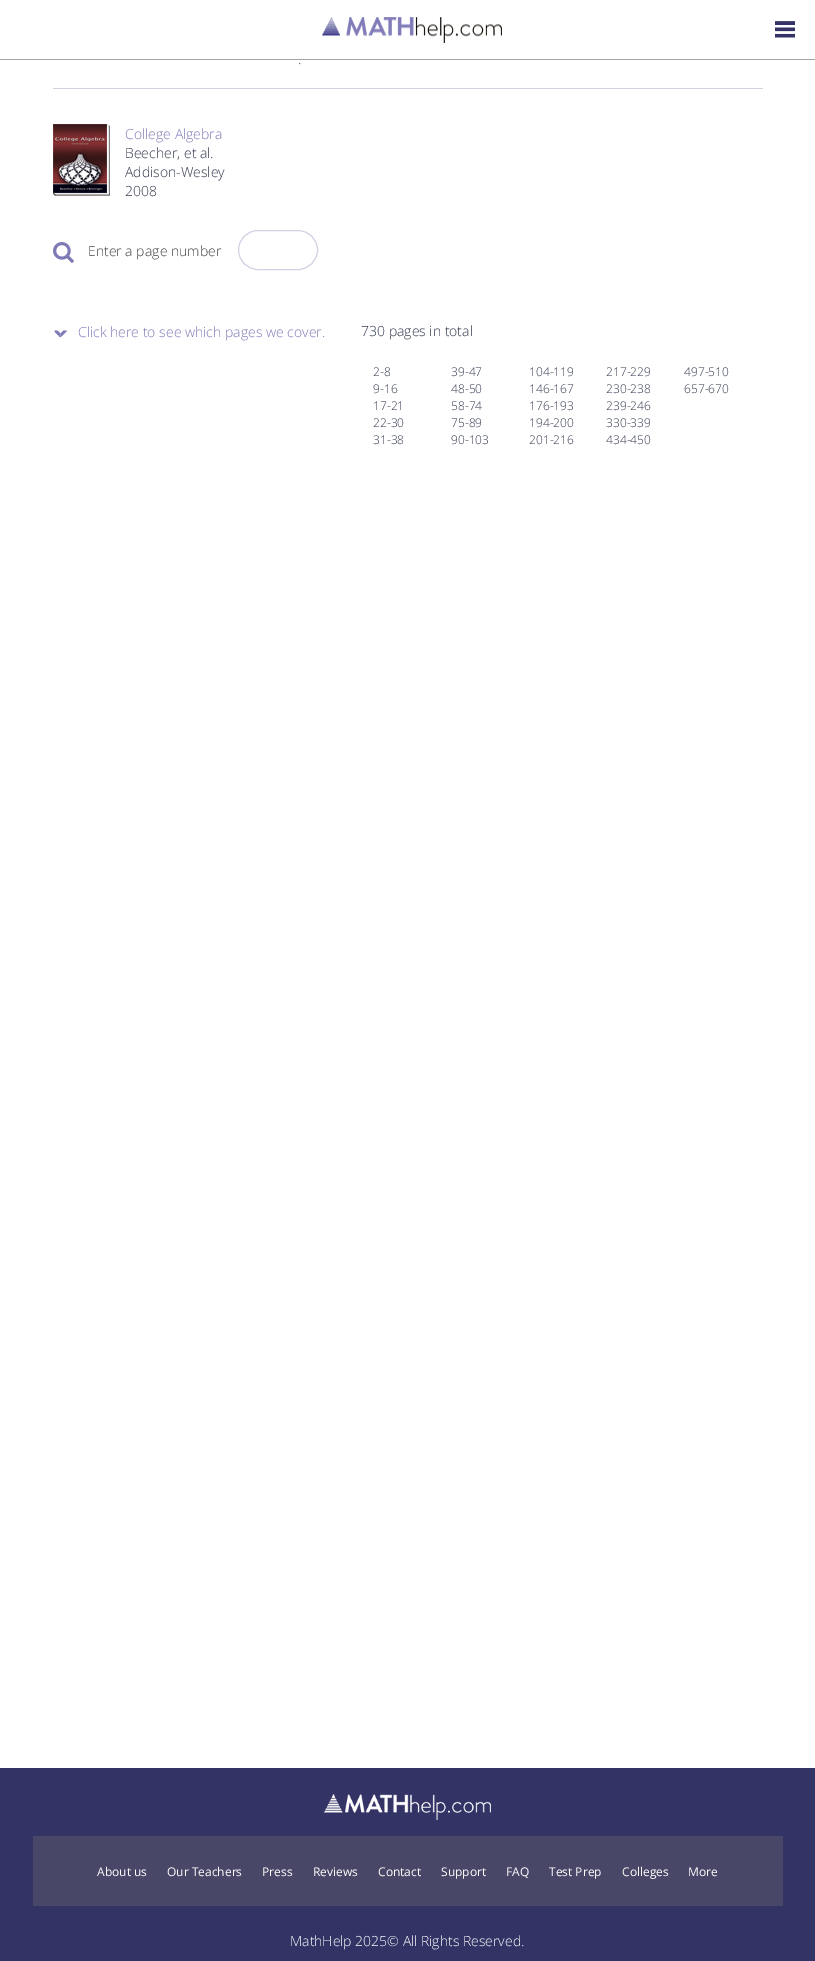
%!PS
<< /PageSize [815 1961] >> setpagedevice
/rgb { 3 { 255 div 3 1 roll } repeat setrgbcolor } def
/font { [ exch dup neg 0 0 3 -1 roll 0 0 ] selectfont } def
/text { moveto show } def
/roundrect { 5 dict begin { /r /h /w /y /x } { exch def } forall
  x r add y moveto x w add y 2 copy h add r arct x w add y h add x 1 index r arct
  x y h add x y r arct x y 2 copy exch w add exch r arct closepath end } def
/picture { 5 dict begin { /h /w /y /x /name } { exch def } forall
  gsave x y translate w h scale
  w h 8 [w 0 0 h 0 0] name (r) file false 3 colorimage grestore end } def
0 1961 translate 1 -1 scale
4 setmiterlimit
255 255 255 rgb
0 0 815 1961 rectfill
162 162 162 rgb
0 59 815 1 rectfill
(img_01.rgb) 322 17 180 26 picture
(img_02.rgb) 775 21 20 17 picture
210 210 228 rgb
53 88 710 1 rectfill
(img_03.rgb) 53 124 57 72 picture
(img_04.rgb) 53 242 21 21 picture
238.5 230.5 79 39 19.5 roundrect stroke
126 122 182 rgb
66 332 moveto 1 -1.5 rlineto -3.5 0 rlineto -3 3 rlineto 0 3.5 rlineto 1.5 -1 rlineto closepath fill
58.5 335.5 moveto -1.5 -1.5 -4 -3 -4 -5 rcurveto 3 0 rlineto 3 3 rlineto 0 3.5 rlineto -1 0.5 -1.5 -1 -2 -1.5 rcurveto closepath fill
51 51 102 rgb
0 1768 815 193 rectfill
(img_05.rgb) 324 1794 167 26 picture
73 71 104 rgb
33 1836 750 70 rectfill
/OpenSans-Light 14 font
63 67 80 rgb
(.) 298 64 text
126 122 182 rgb
(College Algebra) 125 139 text
50 57 77 rgb
(Beecher, et al.) 125 158 text
(Addison-Wesley) 125 177 text
(2008) 125 196 text
66 66 66 rgb
(Enter a page number) 88 256 text
126 122 182 rgb
(Click here to see which pages we cover.) 78 337 text
50 57 77 rgb
(730 pages in total) 361 336 text
/OpenSans-Light 12 font
(2-8) 373 376 text
(39-47) 451 376 text
(104-119) 529 376 text
(217-229) 606 376 text
(497-510) 684 376 text
(9-16) 373 393 text
(48-50) 451 393 text
(146-167) 529 393 text
(230-238) 606 393 text
(657-670) 684 393 text
(17-21) 373 410 text
(58-74) 451 410 text
(176-193) 529 410 text
(239-246) 606 410 text
(22-30) 373 427 text
(75-89) 451 427 text
(194-200) 529 427 text
(330-339) 606 427 text
(31-38) 373 444 text
(90-103) 451 444 text
(201-216) 529 444 text
(434-450) 606 444 text
/OpenSans-Regular 12 font
255 255 255 rgb
(About us) 97 1876 text
(Our Teachers) 167 1876 text
(Press) 262 1876 text
(Reviews) 313 1876 text
(Contact) 378 1876 text
(Support) 441 1876 text
(FAQ) 506 1876 text
(Test Prep) 549 1876 text
(Colleges) 622 1876 text
(More) 688 1876 text
/OpenSans-Light 14 font
(MathHelp 2025© All Rights Reserved.) 290 1946 text
showpage
